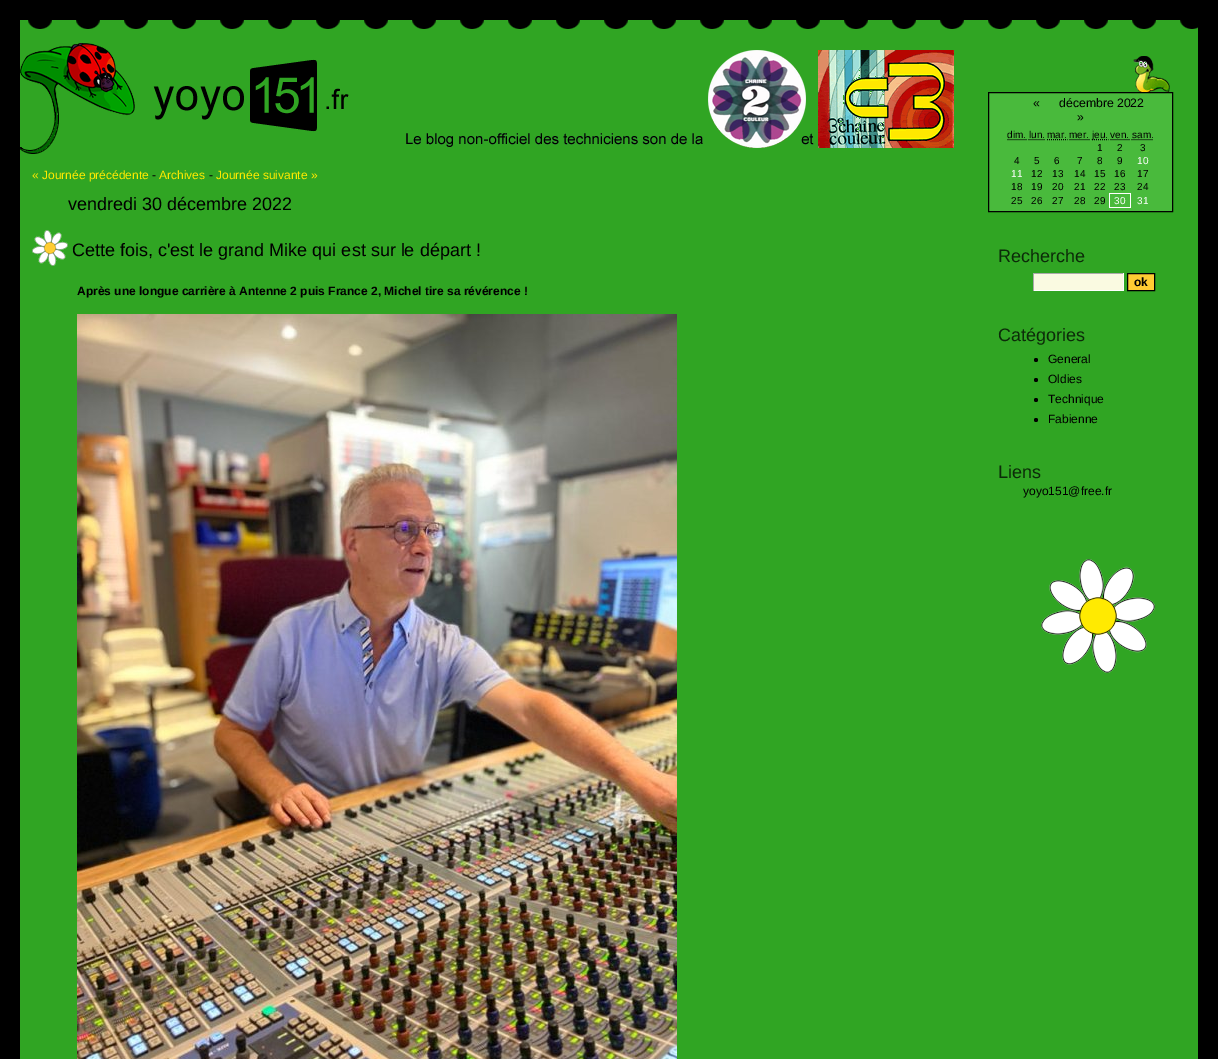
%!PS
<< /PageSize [1218 1059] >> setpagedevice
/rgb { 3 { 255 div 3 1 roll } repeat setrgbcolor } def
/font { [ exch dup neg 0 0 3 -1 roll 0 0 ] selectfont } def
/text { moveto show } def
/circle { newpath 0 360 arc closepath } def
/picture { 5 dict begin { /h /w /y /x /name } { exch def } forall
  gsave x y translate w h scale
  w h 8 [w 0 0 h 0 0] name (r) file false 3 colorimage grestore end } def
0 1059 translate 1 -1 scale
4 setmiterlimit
0 0 0 rgb
0 0 1218 1059 rectfill
48 165 35 rgb
20 20 1178 1039 rectfill
(img_01.rgb) 28 20 1170 9 picture
(img_02.rgb) 20 43 115 111 picture
(img_03.rgb) 153 59 196 73 picture
(img_04.rgb) 406 50 548 98 picture
(img_05.rgb) 32 230 36 36 picture
(img_06.rgb) 77 314 600 745 picture
(img_07.rgb) 1041 559 114 114 picture
(img_08.rgb) 1130 56 40 36 picture
73 186 60 rgb
988.5 92.5 moveto 184 0 rlineto 0 119 rlineto -184 0 rlineto closepath gsave fill grestore
0 0 0 rgb
stroke
[1 1] 0 setdash
1007.5 139.5 moveto 19 0 rlineto stroke
1028.5 139.5 moveto 16.5 0 rlineto stroke
1047 139.5 moveto 20.5 0 rlineto stroke
1069.5 139.5 moveto 20.5 0 rlineto stroke
1092 139.5 moveto 16.5 0 rlineto stroke
1110.5 139.5 moveto 19 0 rlineto stroke
1131.5 139.5 moveto 22 0 rlineto stroke
255 255 255 rgb
1109 193 22 1 rectfill
1130 193 1 15 rectfill
1109 207 22 1 rectfill
1109 193 1 15 rectfill
250 250 225 rgb
1034 274 89 16 rectfill
170 170 170 rgb
1033 273 91 1 rectfill
255 255 255 rgb
1123 273 1 18 rectfill
1033 290 91 1 rectfill
170 170 170 rgb
1033 273 1 18 rectfill
255 204 51 rgb
1127.5 273.5 moveto 27 0 rlineto 0 17 rlineto -27 0 rlineto closepath gsave fill grestore
0 0 0 rgb
[] 0 setdash
stroke
1036 360 2 circle fill
1036 380 2 circle fill
1036 400 2 circle fill
1036 420 2 circle fill
/LiberationSans-Regular 12 font
255 234 0 rgb
(« Journée précédente) 32 179 text
0 0 0 rgb
(-) 152 179 text
255 234 0 rgb
(Archives) 159 179 text
0 0 0 rgb
(-) 209 179 text
255 234 0 rgb
(Journée suivante ») 216 179 text
/LiberationSans-Regular 18 font
0 0 0 rgb
(vendredi 30 décembre 2022) 68 210 text
(Cette fois, c'est le grand Mike qui est sur le départ !) 72 256 text
/LiberationSans-Bold 12 font
(Après une longue carrière à Antenne 2 puis France 2, Michel tire sa révérence !) 77 295 text
/LiberationSans-Regular 12.25 font
(«) 1033 107 text
(décembre 2022) 1059 107 text
(») 1077 121 text
/LiberationSans-Regular 10 font
(dim.) 1007 138 text
(lun.) 1029 138 text
(mar.) 1047 138 text
(mer.) 1069 138 text
(jeu.) 1092 138 text
(ven.) 1110 138 text
(sam.) 1132 138 text
(1) 1097 151 text
(2) 1117 151 text
(3) 1140 151 text
(4) 1014 164 text
(5) 1034 164 text
(6) 1054 164 text
(7) 1077 164 text
(8) 1097 164 text
(9) 1117 164 text
255 255 255 rgb
(10) 1137 164 text
(11) 1011 177 text
0 0 0 rgb
(12) 1031 177 text
(13) 1052 177 text
(14) 1074 177 text
(15) 1094 177 text
(16) 1114 177 text
(17) 1137 177 text
(18) 1011 190 text
(19) 1031 190 text
(20) 1052 190 text
(21) 1074 190 text
(22) 1094 190 text
(23) 1114 190 text
(24) 1137 190 text
(25) 1011 204 text
(26) 1031 204 text
(27) 1052 204 text
(28) 1074 204 text
(29) 1094 204 text
255 255 255 rgb
(30) 1114 204 text
(31) 1137 204 text
/LiberationSans-Regular 18 font
12 43 9 rgb
(Recherche) 998 262 text
/LiberationSans-Bold 12 font
0 0 0 rgb
(ok) 1134 286 text
/LiberationSans-Regular 18 font
12 43 9 rgb
(Catégories) 998 341 text
/LiberationSans-Regular 12 font
0 0 0 rgb
(General) 1048 363 text
(Oldies) 1048 383 text
(Technique) 1048 403 text
(Fabienne) 1048 423 text
/LiberationSans-Regular 18 font
12 43 9 rgb
(Liens) 998 478 text
/LiberationSans-Regular 12 font
0 0 0 rgb
(yoyo151@free.fr) 1023 495 text
showpage
